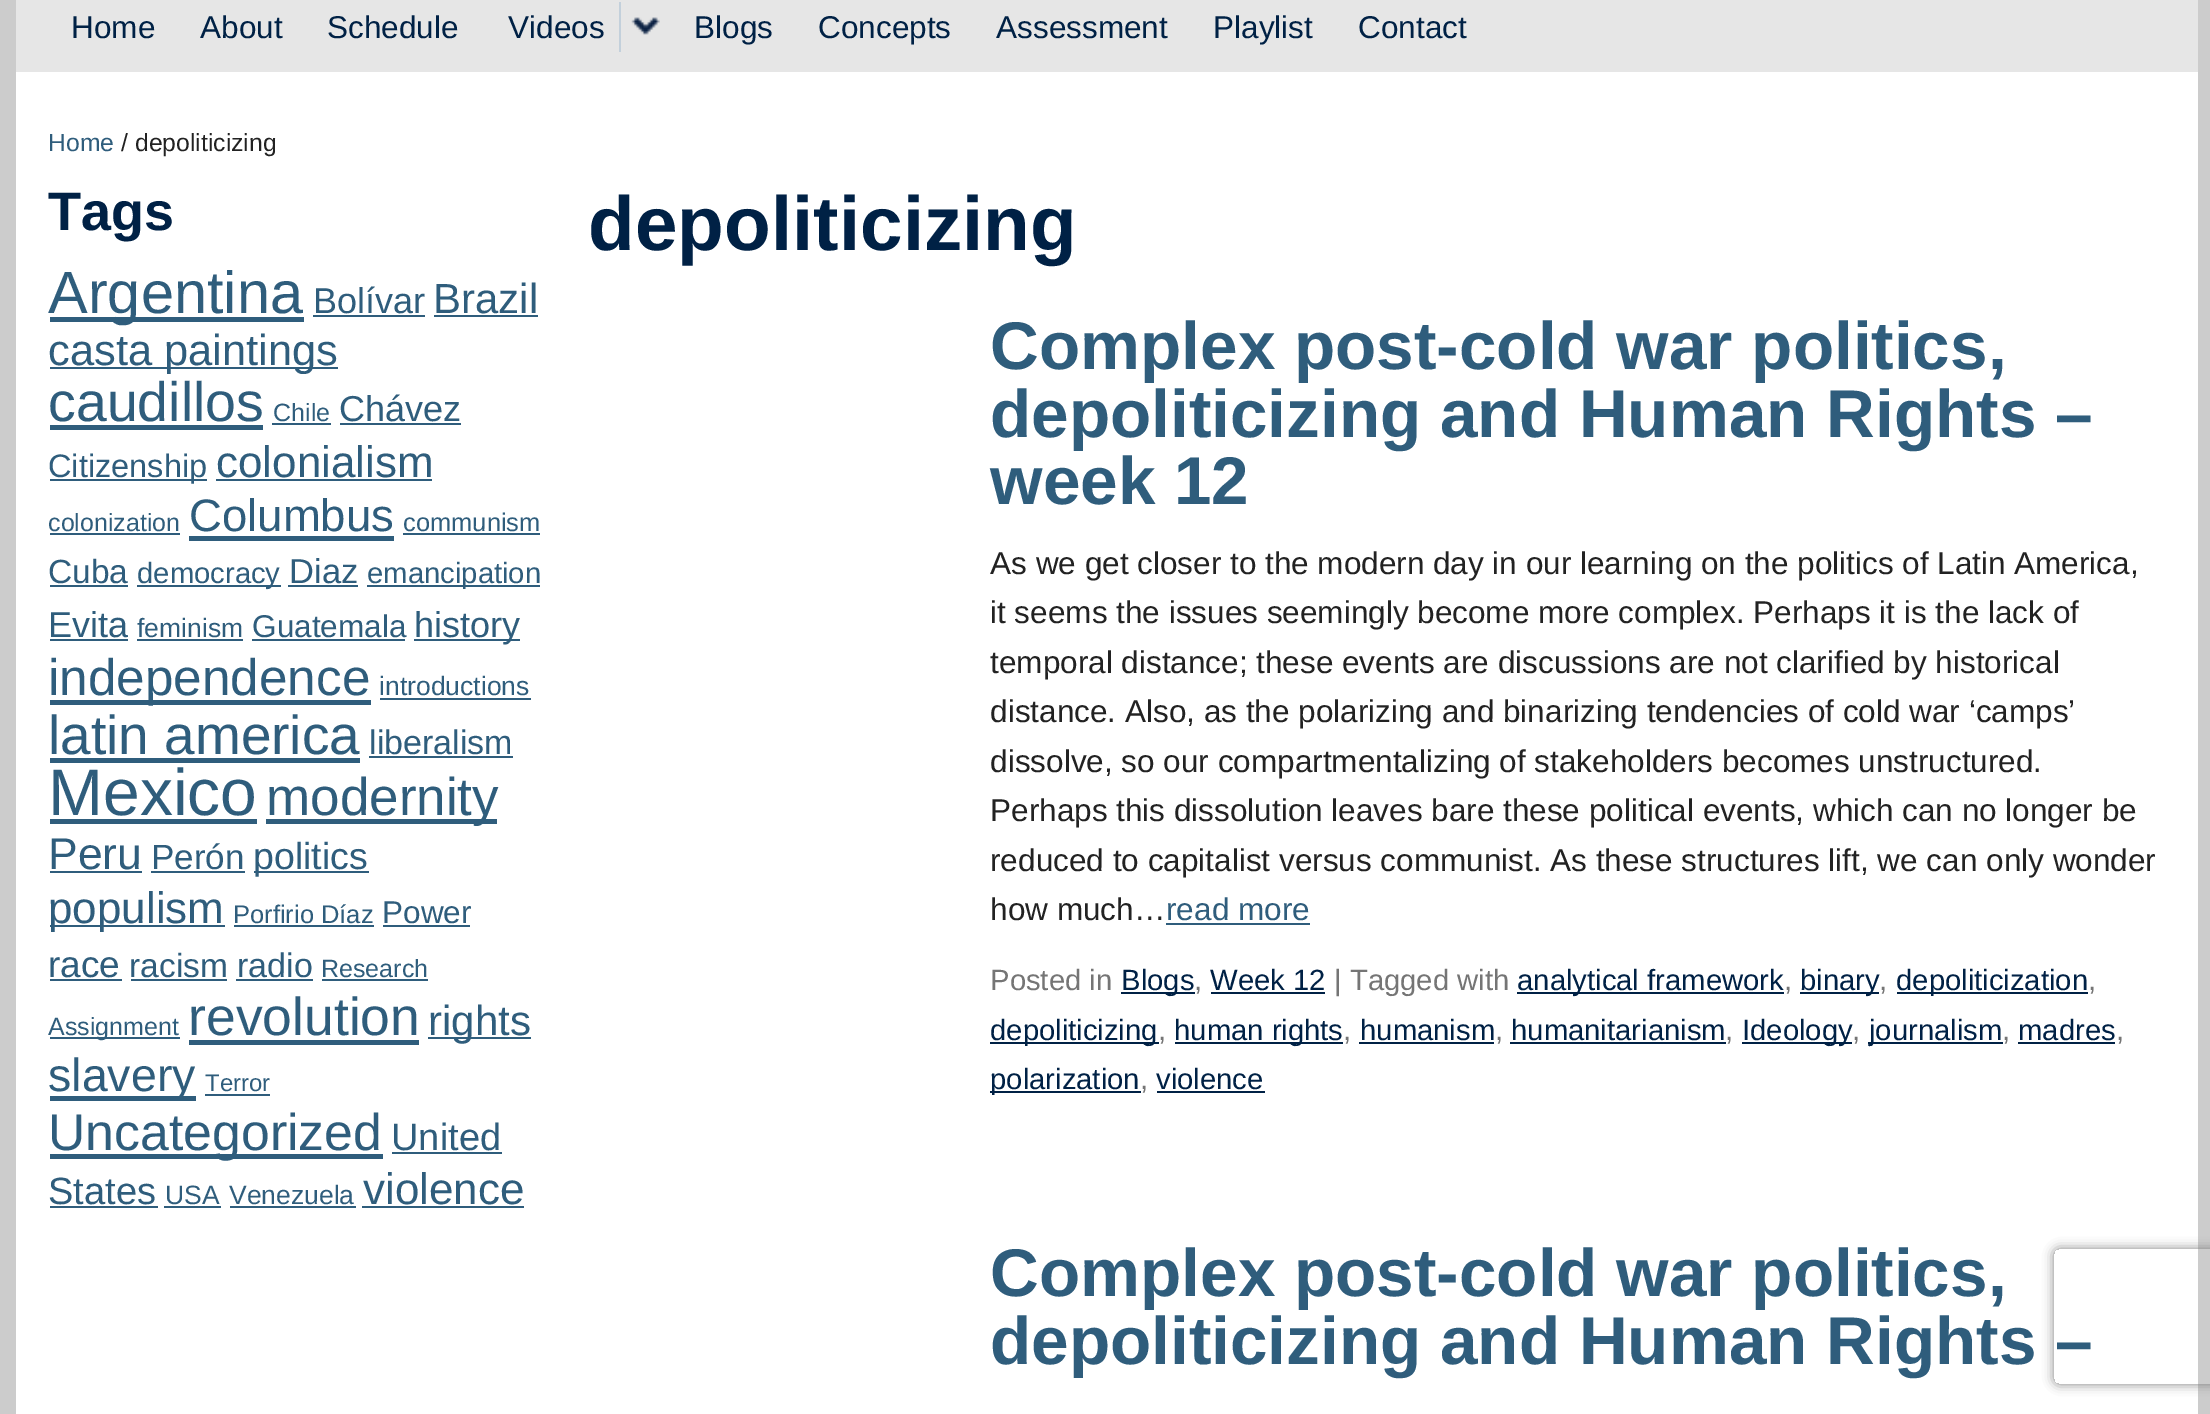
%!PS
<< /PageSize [2210 1414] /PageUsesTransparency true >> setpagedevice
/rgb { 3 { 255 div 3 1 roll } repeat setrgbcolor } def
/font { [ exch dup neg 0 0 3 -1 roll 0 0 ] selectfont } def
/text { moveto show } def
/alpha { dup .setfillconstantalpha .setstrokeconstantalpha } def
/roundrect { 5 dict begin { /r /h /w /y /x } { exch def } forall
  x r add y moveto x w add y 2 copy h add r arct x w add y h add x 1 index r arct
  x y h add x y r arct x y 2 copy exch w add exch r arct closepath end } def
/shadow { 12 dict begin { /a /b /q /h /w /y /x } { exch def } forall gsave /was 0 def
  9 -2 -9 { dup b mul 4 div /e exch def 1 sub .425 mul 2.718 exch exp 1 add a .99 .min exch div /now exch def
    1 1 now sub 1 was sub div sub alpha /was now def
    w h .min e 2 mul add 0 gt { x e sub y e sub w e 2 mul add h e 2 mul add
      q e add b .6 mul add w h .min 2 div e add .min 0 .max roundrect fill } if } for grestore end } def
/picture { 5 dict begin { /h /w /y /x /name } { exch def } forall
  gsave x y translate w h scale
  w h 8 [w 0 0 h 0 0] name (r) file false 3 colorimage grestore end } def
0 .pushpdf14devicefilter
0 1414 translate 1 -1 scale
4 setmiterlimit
204 204 204 rgb
0 0 2210 1414 rectfill
230 230 230 rgb
16 0 2182 72 rectfill
195 208 219 rgb
619 2 2 50 rectfill
(img_01.rgb) 631 17 29 18 picture
255 255 255 rgb
16 72 2182 1342 rectfill
47 93 124 rgb
50 317 254 5 rectfill
313 315 112 2 rectfill
434 315 104 2 rectfill
50 367 288 2 rectfill
50 425 213 5 rectfill
272 423 59 2 rectfill
340 423 121 2 rectfill
50 479 157 2 rectfill
216 479 216 2 rectfill
50 533 130 2 rectfill
189 536 205 5 rectfill
403 533 137 2 rectfill
50 585 78 2 rectfill
137 585 144 2 rectfill
288 585 70 2 rectfill
367 585 173 2 rectfill
50 639 78 2 rectfill
137 639 106 2 rectfill
252 639 153 2 rectfill
414 639 106 2 rectfill
50 700 321 5 rectfill
380 698 151 2 rectfill
50 758 310 5 rectfill
369 756 144 2 rectfill
50 819 207 5 rectfill
266 819 231 5 rectfill
50 871 92 2 rectfill
151 871 94 2 rectfill
254 871 115 2 rectfill
50 925 175 2 rectfill
234 925 140 2 rectfill
383 925 87 2 rectfill
50 979 72 2 rectfill
131 979 96 2 rectfill
236 979 77 2 rectfill
322 979 106 2 rectfill
50 1037 130 2 rectfill
189 1040 230 5 rectfill
428 1037 103 2 rectfill
50 1096 146 5 rectfill
205 1094 65 2 rectfill
50 1154 333 5 rectfill
392 1152 110 2 rectfill
50 1206 108 2 rectfill
164 1206 57 2 rectfill
230 1206 126 2 rectfill
362 1206 162 2 rectfill
1166 923 144 2 rectfill
0 33 69 rgb
1121 992 74 2 rectfill
1211 992 114 2 rectfill
1517 992 267 2 rectfill
1800 992 79 2 rectfill
1897 992 191 2 rectfill
990 1042 169 2 rectfill
1175 1042 168 2 rectfill
1359 1042 135 2 rectfill
1510 1042 216 2 rectfill
1742 1042 110 2 rectfill
1868 1042 135 2 rectfill
2018 1042 97 2 rectfill
990 1091 151 2 rectfill
1157 1091 108 2 rectfill
gsave
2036 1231 moveto 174 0 rlineto 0 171 rlineto -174 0 rlineto closepath 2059 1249 moveto 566 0 rlineto 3 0 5 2 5 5 rcurveto 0 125 rlineto 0 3 -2 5 -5 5 rcurveto -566 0 rlineto -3 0 -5 -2 -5 -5 rcurveto 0 -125 rlineto 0 -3 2 -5 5 -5 rcurveto closepath eoclip newpath
128 128 128 rgb
2054 1249 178 135 5 5.5 1 shadow
grestore
/LiberationSans-Regular 31.5 font
(Home) 71 38 text
(About) 200 38 text
(Schedule) 327 38 text
(Videos) 508 38 text
(Blogs) 694 38 text
(Concepts) 818 38 text
(Assessment) 996 38 text
(Playlist) 1213 38 text
(Contact) 1358 38 text
/LiberationSans-Regular 24.75 font
47 93 124 rgb
(Home) 48 151 text
34 34 34 rgb
(/ depoliticizing) 121 151 text
/LiberationSans-Bold 54 font
0 33 69 rgb
(Tags) 48 230 text
/LiberationSans-Regular 59.5 font
47 93 124 rgb
(Argentina) 48 313 text
/LiberationSans-Regular 36 font
(Bolívar) 313 313 text
/LiberationSans-Regular 42 font
(Brazil) 433 313 text
/LiberationSans-Regular 43.5 font
(casta paintings) 48 365 text
/LiberationSans-Regular 55.5 font
(caudillos) 48 421 text
/LiberationSans-Regular 25 font
(Chile) 273 421 text
/LiberationSans-Regular 36 font
(Chávez) 339 421 text
/LiberationSans-Regular 32.5 font
(Citizenship) 48 477 text
/LiberationSans-Regular 44 font
(colonialism) 216 477 text
/LiberationSans-Regular 25 font
(colonization) 48 531 text
/LiberationSans-Regular 45.5 font
(Columbus) 189 531 text
/LiberationSans-Regular 25.5 font
(communism) 403 531 text
/LiberationSans-Regular 33.5 font
(Cuba) 48 583 text
/LiberationSans-Regular 29.25 font
(democracy) 137 583 text
/LiberationSans-Regular 34.5 font
(Diaz) 289 583 text
/LiberationSans-Regular 29.25 font
(emancipation) 367 583 text
/LiberationSans-Regular 36 font
(Evita) 48 637 text
/LiberationSans-Regular 26.5 font
(feminism) 137 637 text
/LiberationSans-Regular 31.5 font
(Guatemala) 252 637 text
/LiberationSans-Regular 36 font
(history) 414 637 text
/LiberationSans-Regular 51.25 font
(independence) 48 695 text
/LiberationSans-Regular 26.5 font
(introductions) 379 695 text
/LiberationSans-Regular 55 font
(latin america) 48 754 text
/LiberationSans-Regular 34 font
(liberalism) 369 754 text
/LiberationSans-Regular 66 font
(Mexico) 48 815 text
/LiberationSans-Regular 53 font
(modernity) 266 815 text
/LiberationSans-Regular 44.5 font
(Peru) 48 869 text
/LiberationSans-Regular 35 font
(Perón) 151 869 text
/LiberationSans-Regular 37.5 font
(politics) 253 869 text
/LiberationSans-Regular 44 font
(populism) 48 923 text
/LiberationSans-Regular 25.5 font
(Porfirio Díaz) 233 923 text
/LiberationSans-Regular 31.5 font
(Power) 382 923 text
/LiberationSans-Regular 37 font
(race) 48 977 text
/LiberationSans-Regular 33.5 font
(racism) 129 977 text
/LiberationSans-Regular 34 font
(radio) 237 977 text
/LiberationSans-Regular 25 font
(Research) 321 977 text
(Assignment) 48 1035 text
/LiberationSans-Regular 53.5 font
(revolution) 188 1035 text
/LiberationSans-Regular 42 font
(rights) 428 1035 text
/LiberationSans-Regular 46.5 font
(slavery) 48 1091 text
/LiberationSans-Regular 24 font
(Terror) 205 1091 text
/LiberationSans-Regular 51.75 font
(Uncategorized) 48 1150 text
/LiberationSans-Regular 38 font
(United) 391 1150 text
(States) 48 1204 text
/LiberationSans-Regular 26.5 font
(USA) 165 1204 text
(Venezuela) 229 1204 text
/LiberationSans-Regular 44 font
(violence) 363 1204 text
/LiberationSans-Bold 76.5 font
0 33 69 rgb
(depoliticizing) 588 250 text
/LiberationSans-Bold 67.5 font
47 93 124 rgb
(Complex post-cold war politics,) 990 369 text
(depoliticizing and Human Rights –) 990 437 text
(week 12) 990 504 text
/LiberationSans-Regular 31.5 font
34 34 34 rgb
(As we get closer to the modern day in our learning on the politics of Latin America,) 990 574 text
(it seems the issues seemingly become more complex. Perhaps it is the lack of) 990 623 text
(temporal distance; these events are discussions are not clarified by historical) 990 673 text
(distance. Also, as the polarizing and binarizing tendencies of cold war ‘camps’) 990 722 text
(dissolve, so our compartmentalizing of stakeholders becomes unstructured.) 990 772 text
(Perhaps this dissolution leaves bare these political events, which can no longer be) 990 821 text
(reduced to capitalist versus communist. As these structures lift, we can only wonder) 990 871 text
(how much…) 990 920 text
47 93 124 rgb
(read more) 1166 920 text
/LiberationSans-Regular 29.25 font
117 117 117 rgb
(Posted in) 990 990 text
0 33 69 rgb
(Blogs) 1121 990 text
117 117 117 rgb
(,) 1194 990 text
0 33 69 rgb
(Week 12) 1210 990 text
117 117 117 rgb
(| Tagged with) 1334 990 text
0 33 69 rgb
(analytical framework) 1517 990 text
117 117 117 rgb
(,) 1784 990 text
0 33 69 rgb
(binary) 1800 990 text
117 117 117 rgb
(,) 1879 990 text
0 33 69 rgb
(depoliticization) 1896 990 text
117 117 117 rgb
(,) 2088 990 text
0 33 69 rgb
(depoliticizing) 990 1040 text
117 117 117 rgb
(,) 1158 1040 text
0 33 69 rgb
(human rights) 1174 1040 text
117 117 117 rgb
(,) 1343 1040 text
0 33 69 rgb
(humanism) 1360 1040 text
117 117 117 rgb
(,) 1495 1040 text
0 33 69 rgb
(humanitarianism) 1511 1040 text
117 117 117 rgb
(,) 1725 1040 text
0 33 69 rgb
(Ideology) 1742 1040 text
117 117 117 rgb
(,) 1852 1040 text
0 33 69 rgb
(journalism) 1869 1040 text
117 117 117 rgb
(,) 2002 1040 text
0 33 69 rgb
(madres) 2018 1040 text
117 117 117 rgb
(,) 2116 1040 text
0 33 69 rgb
(polarization) 990 1089 text
117 117 117 rgb
(,) 1140 1089 text
0 33 69 rgb
(violence) 1156 1089 text
/LiberationSans-Bold 67.5 font
47 93 124 rgb
(Complex post-cold war politics,) 990 1296 text
(depoliticizing and Human Rights –) 990 1364 text
.poppdf14devicefilter showpage
